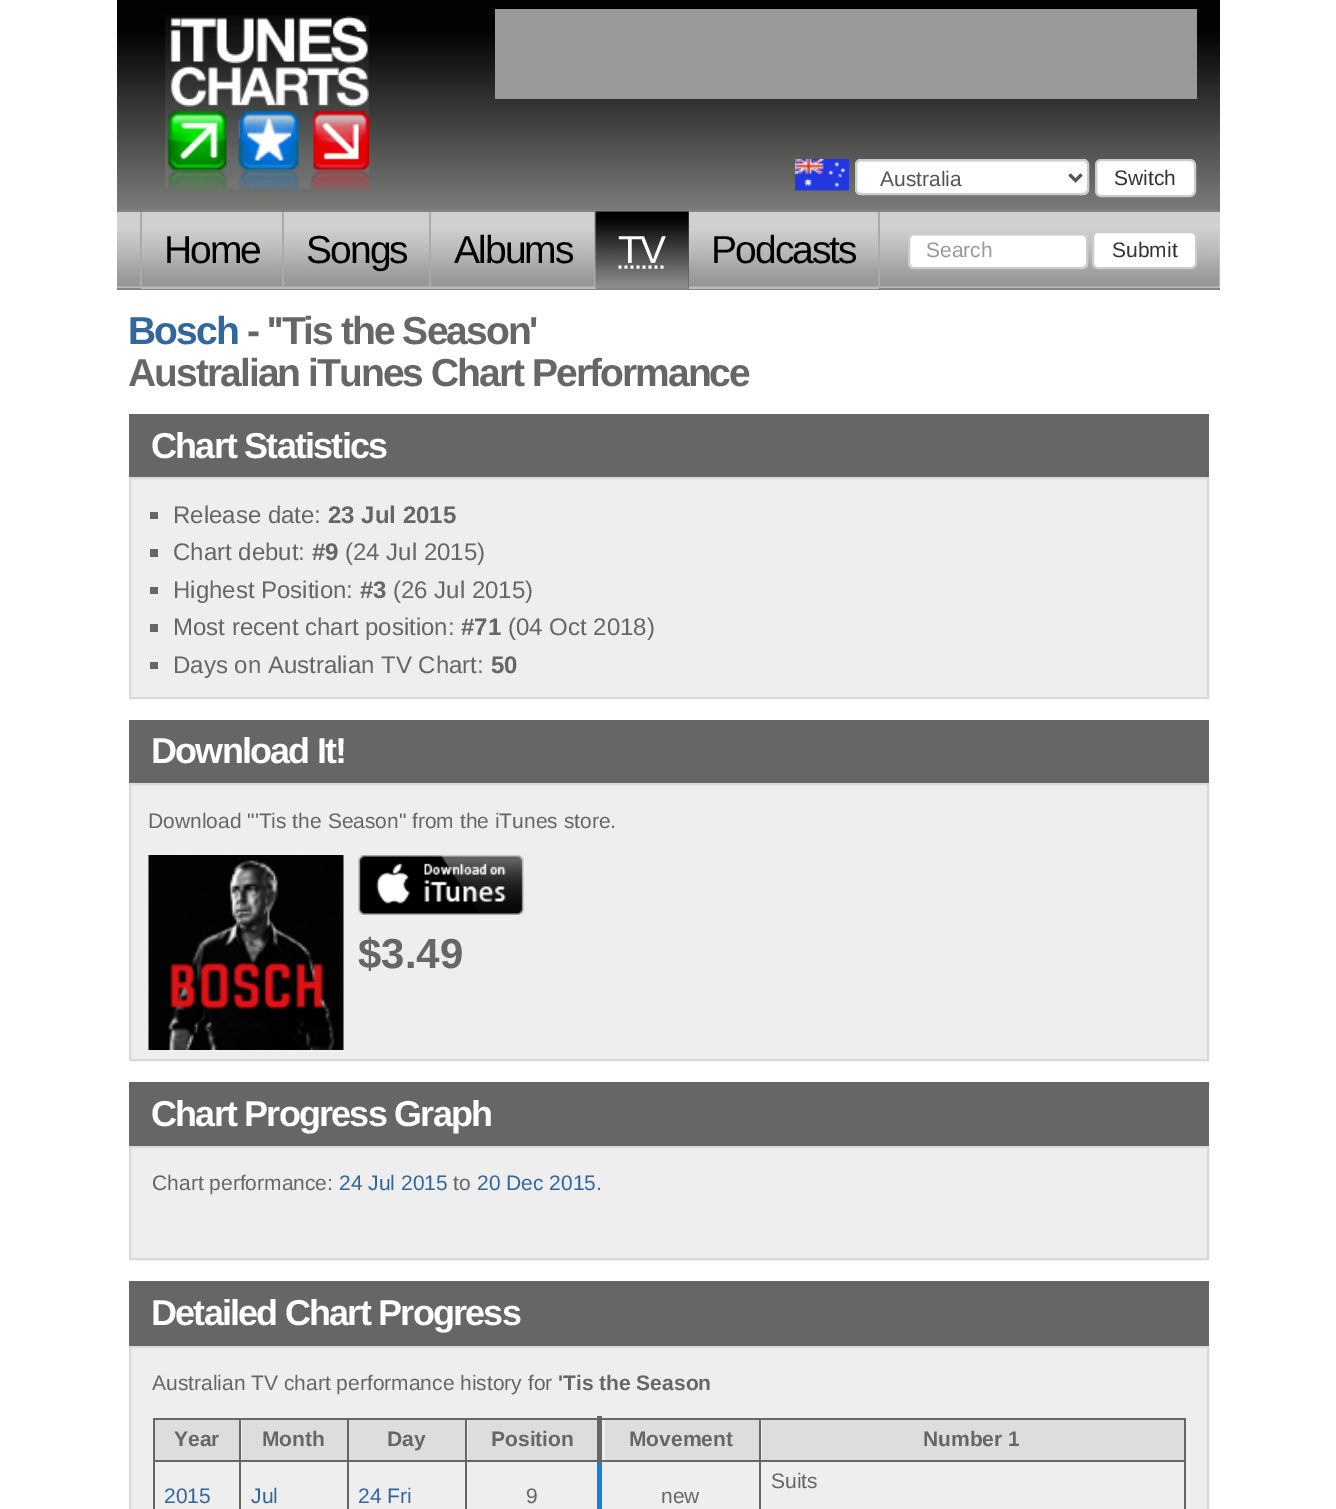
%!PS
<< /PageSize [1336 1509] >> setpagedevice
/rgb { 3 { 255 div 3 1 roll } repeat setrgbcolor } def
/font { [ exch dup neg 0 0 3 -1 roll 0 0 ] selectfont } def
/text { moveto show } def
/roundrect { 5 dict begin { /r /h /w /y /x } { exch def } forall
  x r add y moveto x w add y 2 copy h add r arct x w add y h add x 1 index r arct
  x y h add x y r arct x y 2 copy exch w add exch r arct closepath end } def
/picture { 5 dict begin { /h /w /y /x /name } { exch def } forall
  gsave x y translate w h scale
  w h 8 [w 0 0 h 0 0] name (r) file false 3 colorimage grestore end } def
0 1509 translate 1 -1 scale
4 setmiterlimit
255 255 255 rgb
0 0 1336 1509 rectfill
gsave 117 0 moveto 1103 0 rlineto 0 210 rlineto -1103 0 rlineto closepath clip newpath
<< /ShadingType 2 /ColorSpace /DeviceRGB /Coords [668 210 668 0] /Extend [true true] /Function << /FunctionType 3 /Domain [0 1] /Functions [<< /FunctionType 2 /Domain [0 1] /C0 [0.482 0.482 0.478] /C1 [0.008 0.008 0.008] /N 1 >> << /FunctionType 2 /Domain [0 1] /C0 [0.008 0.008 0.008] /C1 [0.008 0.008 0.008] /N 1 >>] /Bounds [0.86] /Encode [0 1 0 1] >> >> shfill grestore
153 153 153 rgb
495 9 702 90 rectfill
(img_01.rgb) 165 15 204 174 picture
(img_02.rgb) 795 159 54 32 picture
255 255 255 rgb
855 159 234 36 6 roundrect fill
236 236 236 rgb
861 162 moveto 222 0 rlineto 2 0 5 2 5 4 rcurveto 0 -2 rlineto -1 -1 -2 -3 -4 -3 rcurveto -223 0 rlineto -3 2 rlineto closepath fill
204 204 204 rgb
2 setlinewidth
856 160 232 34 5 roundrect stroke
85 85 85 rgb
3 setlinewidth
1069.5 174.5 moveto 6 6 rlineto 6 -6 rlineto stroke
255 255 255 rgb
1096 160 99 36 5 roundrect gsave fill grestore
204 204 204 rgb
2 setlinewidth
stroke
208 208 208 rgb
117 212 1103 76 rectfill
(img_03.rgb) 117 231 1103 57 picture
132 132 132 rgb
117 210 1103 2 rectfill
117 288 1103 2 rectfill
(img_04.rgb) 142 231 736 56 picture
170 170 170 rgb
140 212 2 76 rectfill
282 212 2 76 rectfill
187 187 187 rgb
141 287 143 2 rectfill
170 170 170 rgb
429 212 2 76 rectfill
187 187 187 rgb
284 287 147 2 rectfill
170 170 170 rgb
594 212 2 76 rectfill
187 187 187 rgb
431 287 165 2 rectfill
89 89 89 rgb
688 212 1 76 rectfill
(img_05.rgb) 595 211 94 77 picture
255 255 255 rgb
3 setlinewidth
[3 3] 0 setdash
618.5 267 moveto 46 0 rlineto stroke
170 170 170 rgb
878 212 2 76 rectfill
187 187 187 rgb
689 287 190 2 rectfill
255 255 255 rgb
908 233 180 36 6 roundrect fill
236 236 236 rgb
914 236 moveto 168 0 rlineto 2 0 4 2 4 4 rcurveto 0 -3 -1 -5 -4 -6 rcurveto -168 0 rlineto -3 0 -5 3 -5 6 rcurveto 0 -2 2 -4 5 -4 rcurveto closepath fill
204 204 204 rgb
2 setlinewidth
[] 0 setdash
909 234 178 34 5 roundrect stroke
255 255 255 rgb
1093 232 103 36 5 roundrect gsave fill grestore
204 204 204 rgb
stroke
102 102 102 rgb
129 414 1080 63 rectfill
238 238 238 rgb
130 478 moveto 1078 0 rlineto 0 220 rlineto -1078 0 rlineto closepath gsave fill grestore
216 217 218 rgb
stroke
102 102 102 rgb
150 512 8 7 rectfill
150 549 8 8 rectfill
150 587 8 7 rectfill
150 624 8 8 rectfill
150 662 8 7 rectfill
129 720 1080 63 rectfill
238 238 238 rgb
130 784 moveto 1078 0 rlineto 0 276 rlineto -1078 0 rlineto closepath gsave fill grestore
216 217 218 rgb
stroke
(img_06.rgb) 148 855 196 195 picture
(img_07.rgb) 358 855 166 60 picture
102 102 102 rgb
129 1082 1080 64 rectfill
238 238 238 rgb
130 1147 moveto 1078 0 rlineto 0 112 rlineto -1078 0 rlineto closepath gsave fill grestore
216 217 218 rgb
stroke
102 102 102 rgb
129 1281 1080 65 rectfill
238 238 238 rgb
130 1347 moveto 1078 0 rlineto 0 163 rlineto -1078 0 rlineto closepath gsave fill grestore
216 217 218 rgb
stroke
102 102 102 rgb
1184 1418 2 91 rectfill
221 221 221 rgb
155 1420 84 40 rectfill
102 102 102 rgb
759 1418 426 2 rectfill
759 1460 426 2 rectfill
759 1460 2 49 rectfill
465 1460 296 2 rectfill
759 1418 2 43 rectfill
465 1418 296 2 rectfill
465 1460 2 49 rectfill
347 1460 120 2 rectfill
465 1418 2 43 rectfill
347 1418 120 2 rectfill
347 1460 2 49 rectfill
239 1460 109 2 rectfill
347 1418 2 43 rectfill
239 1418 109 2 rectfill
239 1460 2 49 rectfill
153 1460 87 2 rectfill
239 1418 2 43 rectfill
153 1418 87 2 rectfill
153 1460 2 49 rectfill
153 1418 2 43 rectfill
221 221 221 rgb
242 1420 105 40 rectfill
349 1420 116 40 rectfill
468 1420 129 40 rectfill
605 1420 154 40 rectfill
11 131 222 rgb
597 1458 5 51 rectfill
102 102 102 rgb
597 1416 5 47 rectfill
221 221 221 rgb
762 1420 422 40 rectfill
/LiberationSans-Regular 21 font
85 85 85 rgb
(Australia) 880 186 text
51 51 51 rgb
(Switch) 1114 185 text
/LiberationSans-Regular 39 font
0 0 0 rgb
164 263 moveto -1.95 0 (Home) ashow
306 263 moveto -1.95 0 (Songs) ashow
454 263 moveto -1.95 0 (Albums) ashow
255 255 255 rgb
618 263 moveto -1.95 0 (TV) ashow
0 0 0 rgb
711 263 moveto -1.95 0 (Podcasts) ashow
/LiberationSans-Regular 21 font
153 153 153 rgb
(Search) 926 257 text
51 51 51 rgb
(Submit) 1112 257 text
/LiberationSans-Bold 39 font
51 102 153 rgb
128 344 moveto -1.95 0 (Bosch) ashow
102 102 102 rgb
247 344 moveto -1.95 0 (- ''Tis the Season') ashow
128 386 moveto -1.95 0 (Australian iTunes Chart Performance) ashow
/LiberationSans-Bold 36 font
255 255 255 rgb
151 458 moveto -1.8 0 (Chart Statistics) ashow
/LiberationSans-Regular 24 font
102 102 102 rgb
(Release date:) 173 523 text
/LiberationSans-Bold 24 font
(23 Jul 2015) 328 523 text
/LiberationSans-Regular 24 font
(Chart debut:) 173 560 text
/LiberationSans-Bold 24 font
(#9) 312 560 text
/LiberationSans-Regular 24 font
(\(24 Jul 2015\)) 345 560 text
(Highest Position:) 173 598 text
/LiberationSans-Bold 24 font
(#3) 360 598 text
/LiberationSans-Regular 24 font
(\(26 Jul 2015\)) 393 598 text
(Most recent chart position:) 173 635 text
/LiberationSans-Bold 24 font
(#71) 461 635 text
/LiberationSans-Regular 24 font
(\(04 Oct 2018\)) 508 635 text
(Days on Australian TV Chart:) 173 673 text
/LiberationSans-Bold 24 font
(50) 491 673 text
/LiberationSans-Bold 36 font
255 255 255 rgb
151 763 moveto -1.8 0 (Download It!) ashow
/LiberationSans-Regular 21 font
102 102 102 rgb
(Download "'Tis the Season" from the iTunes store.) 148 828 text
/LiberationSans-Bold 42 font
($3.49) 358 968 text
/LiberationSans-Bold 36 font
255 255 255 rgb
151 1126 moveto -1.8 0 (Chart Progress Graph) ashow
/LiberationSans-Regular 21 font
102 102 102 rgb
(Chart performance:) 152 1190 text
51 102 153 rgb
(24 Jul 2015) 339 1190 text
102 102 102 rgb
(to) 453 1190 text
51 102 153 rgb
(20 Dec 2015) 477 1190 text
102 102 102 rgb
(.) 596 1190 text
/LiberationSans-Bold 36 font
255 255 255 rgb
151 1325 moveto -1.8 0 (Detailed Chart Progress) ashow
/LiberationSans-Regular 21 font
102 102 102 rgb
(Australian TV chart performance history for) 152 1390 text
/LiberationSans-Bold 21 font
('Tis the Season) 558 1390 text
(Year) 174 1446 text
(Month) 262 1446 text
(Day) 387 1446 text
(Position) 491 1446 text
(Movement) 629 1446 text
(Number 1) 923 1446 text
/LiberationSans-Regular 21 font
(Suits) 771 1488 text
51 102 153 rgb
(2015) 164 1503 text
(Jul) 251 1503 text
(24 Fri) 358 1503 text
102 102 102 rgb
(9) 526 1503 text
(new) 661 1503 text
showpage
